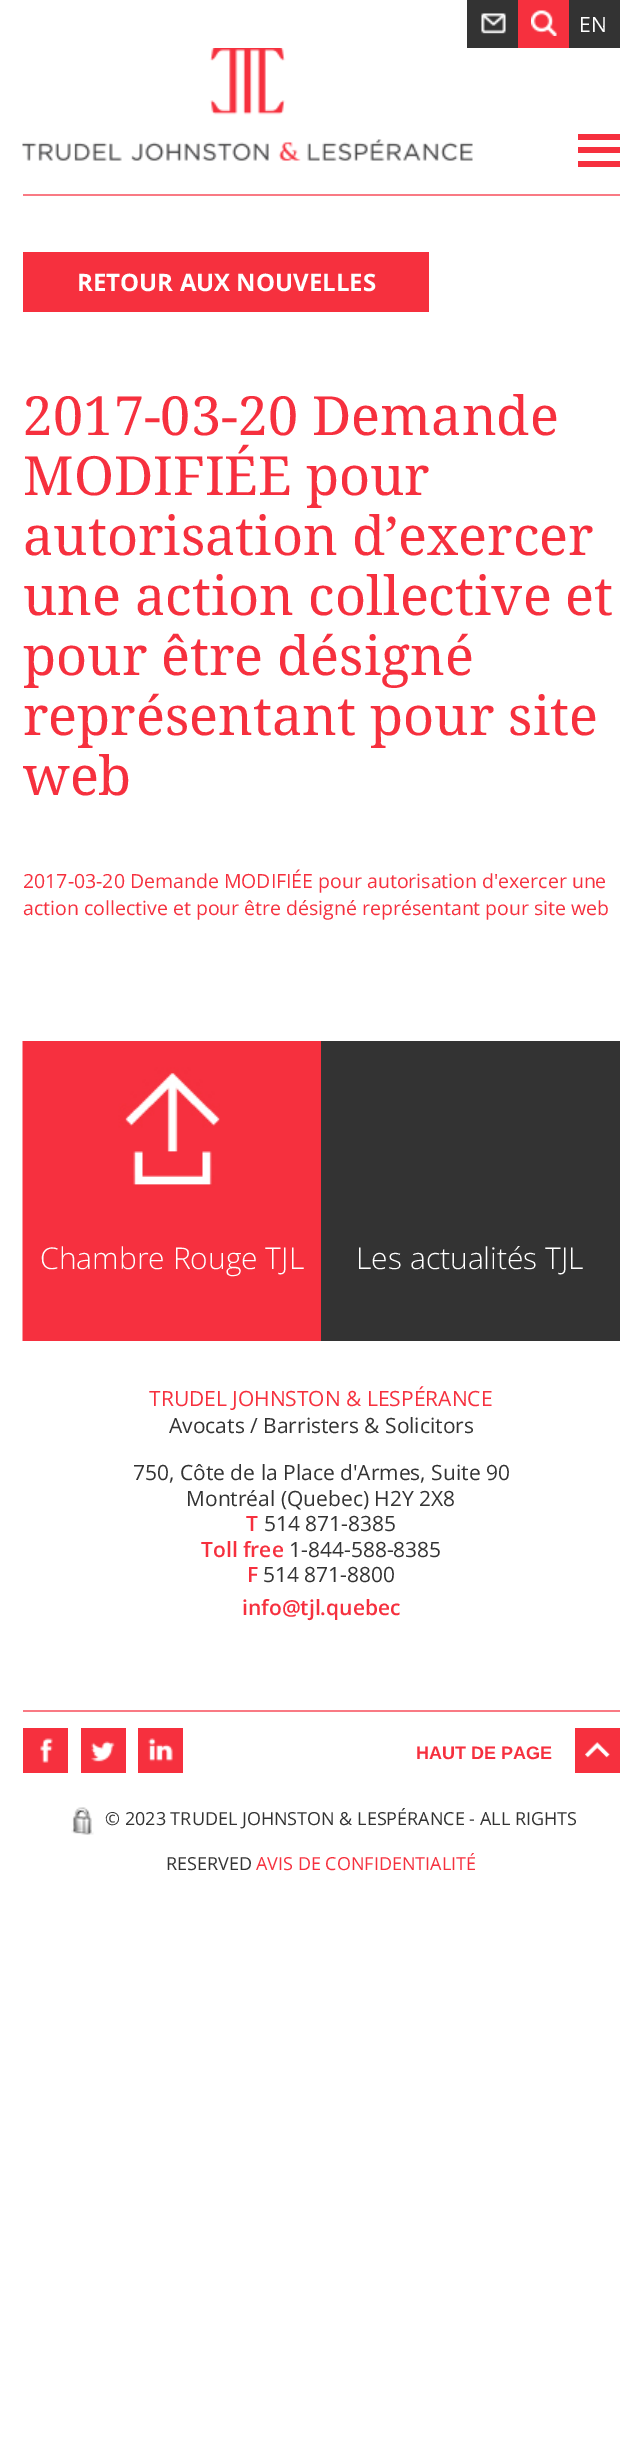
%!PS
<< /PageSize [642 2451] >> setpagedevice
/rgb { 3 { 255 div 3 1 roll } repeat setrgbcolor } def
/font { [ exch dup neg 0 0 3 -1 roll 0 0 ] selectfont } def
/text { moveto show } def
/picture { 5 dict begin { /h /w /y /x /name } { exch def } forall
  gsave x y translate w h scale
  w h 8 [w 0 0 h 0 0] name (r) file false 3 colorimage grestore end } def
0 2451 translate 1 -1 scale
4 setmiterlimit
255 255 255 rgb
0 0 642 2451 rectfill
51 51 51 rgb
467 0 51 48 rectfill
(img_01.rgb) 481 13 25 21 picture
246 48 62 rgb
518 0 51 48 rectfill
(img_02.rgb) 531 10 26 26 picture
51 51 51 rgb
569 0 51 48 rectfill
249 122 132 rgb
23 194 597 2 rectfill
(img_03.rgb) 22 48 451 113 picture
246 48 62 rgb
578 134 42 6 rectfill
578 147 42 6 rectfill
578 161 42 6 rectfill
23 252 406 60 rectfill
220 1041 101 300 rectfill
(img_04.rgb) 22 1041 198 300 picture
51 51 51 rgb
321 1041 299 300 rectfill
249 122 132 rgb
23 1710 597 2 rectfill
246 48 62 rgb
23 1728 45 45 rectfill
(img_05.rgb) 40 1738 13 25 picture
81 1728 45 45 rectfill
(img_06.rgb) 91 1741 24 21 picture
138 1728 45 45 rectfill
(img_07.rgb) 148 1738 25 24 picture
575 1728 45 45 rectfill
(img_08.rgb) 585 1742 25 16 picture
(img_09.rgb) 71 1807 23 28 picture
/OpenSans-Regular 21 font
255 255 255 rgb
(EN) 579 32 text
/OpenSans-Bold 24 font
(RETOUR AUX NOUVELLES) 77 291 text
/DroidSerif-Regular 54 font
246 48 62 rgb
(2017-03-20 Demande) 23 435 text
(MODIFIÉE pour) 23 495 text
(autorisation d’exercer) 23 555 text
(une action collective et) 23 615 text
(pour être désigné) 23 675 text
(représentant pour site) 23 735 text
(web) 23 795 text
/OpenSans-Regular 19.5 font
(2017-03-20 Demande MODIFIÉE pour autorisation d'exercer une) 23 888 text
(action collective et pour être désigné représentant pour site web) 23 915 text
/OpenSans-Light 30 font
255 255 255 rgb
(Chambre Rouge TJL) 40 1269 text
(Les actualités TJL) 356 1269 text
/OpenSans-Regular 21 font
246 48 62 rgb
(TRUDEL JOHNSTON & LESPÉRANCE) 149 1406 text
51 51 51 rgb
(Avocats / Barristers & Solicitors) 169 1433 text
(750, Côte de la Place d'Armes, Suite 90) 133 1480 text
(Montréal \(Quebec\) H2Y 2X8) 186 1506 text
/OpenSans-SemiBold 21 font
246 48 62 rgb
(T) 246 1531 text
/OpenSans-Regular 21 font
51 51 51 rgb
(514 871-8385) 264 1531 text
/OpenSans-SemiBold 21 font
246 48 62 rgb
(Toll free) 201 1557 text
/OpenSans-Regular 21 font
51 51 51 rgb
(1-844-588-8385) 289 1557 text
/OpenSans-SemiBold 21 font
246 48 62 rgb
(F) 247 1582 text
/OpenSans-Regular 21 font
51 51 51 rgb
(514 871-8800) 263 1582 text
/OpenSans-SemiBold 21 font
246 48 62 rgb
(info@tjl.quebec) 242 1615 text
/LiberationSans-Bold 18 font
(HAUT DE PAGE) 416 1759 text
/OpenSans-Regular 18 font
51 51 51 rgb
(© 2023 TRUDEL JOHNSTON & LESPÉRANCE - ALL RIGHTS) 105 1825 text
(RESERVED) 166 1870 text
246 48 62 rgb
(AVIS DE CONFIDENTIALITÉ) 256 1870 text
showpage
